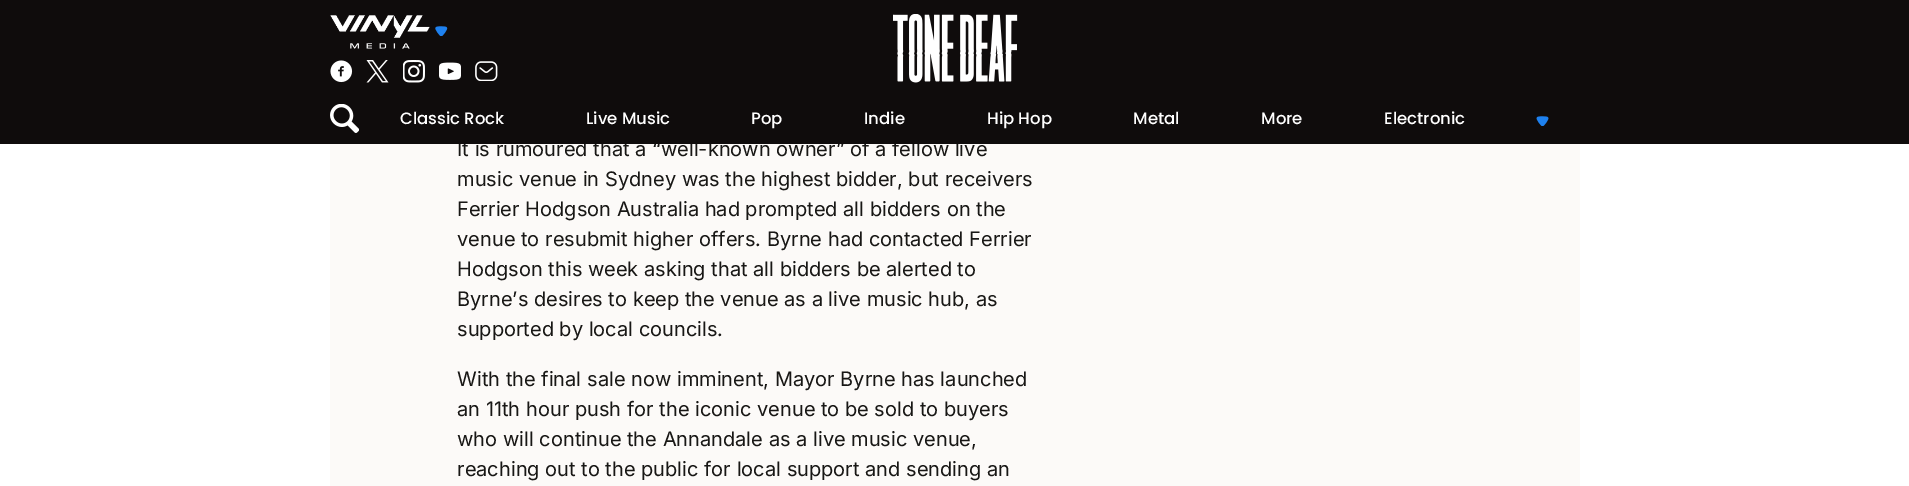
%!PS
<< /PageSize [1909 486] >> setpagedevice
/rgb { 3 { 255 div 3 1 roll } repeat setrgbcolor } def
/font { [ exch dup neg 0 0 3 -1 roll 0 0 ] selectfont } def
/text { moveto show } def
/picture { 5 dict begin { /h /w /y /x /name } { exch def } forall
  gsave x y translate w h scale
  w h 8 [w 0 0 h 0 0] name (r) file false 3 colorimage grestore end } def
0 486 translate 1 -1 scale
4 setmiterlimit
255 255 255 rgb
0 0 1909 486 rectfill
252 250 248 rgb
330 144 1250 342 rectfill
/Inter-Regular 20 font
24 23 21 rgb
(It is rumoured that a “well-known owner” of a fellow live) 457 156 text
15 12 12 rgb
0 0 1909 144 rectfill
(img_10.rgb) 1536 116 13 10 picture
/Poppins-Medium 16.5 font
255 255 255 rgb
(Electronic) 1384 124 text
(More) 1261 124 text
(Metal) 1133 124 text
(Hip Hop) 987 124 text
(Indie) 864 124 text
(Pop) 751 124 text
(Live Music) 586 124 text
(Classic Rock) 400 124 text
(img_09.rgb) 330 104 29 29 picture
(img_08.rgb) 893 14 125 69 picture
(img_07.rgb) 475 61 23 20 picture
(img_06.rgb) 439 62 22 18 picture
(img_05.rgb) 403 60 22 23 picture
(img_04.rgb) 366 60 23 23 picture
(img_03.rgb) 330 60 23 23 picture
(img_02.rgb) 435 26 13 10 picture
(img_01.rgb) 330 15 100 34 picture
/Inter-Regular 20 font
24 23 21 rgb
(music venue in Sydney was the highest bidder, but receivers) 457 186 text
(Ferrier Hodgson Australia had prompted all bidders on the) 457 216 text
(venue to resubmit higher offers. Byrne had contacted Ferrier) 457 246 text
(Hodgson this week asking that all bidders be alerted to) 457 276 text
(Byrne’s desires to keep the venue as a live music hub, as) 457 306 text
(supported by local councils.) 457 336 text
(With the final sale now imminent, Mayor Byrne has launched) 457 386 text
(an 11th hour push for the iconic venue to be sold to buyers) 457 416 text
(who will continue the Annandale as a live music venue,) 457 446 text
(reaching out to the public for local support and sending an) 457 476 text
showpage
